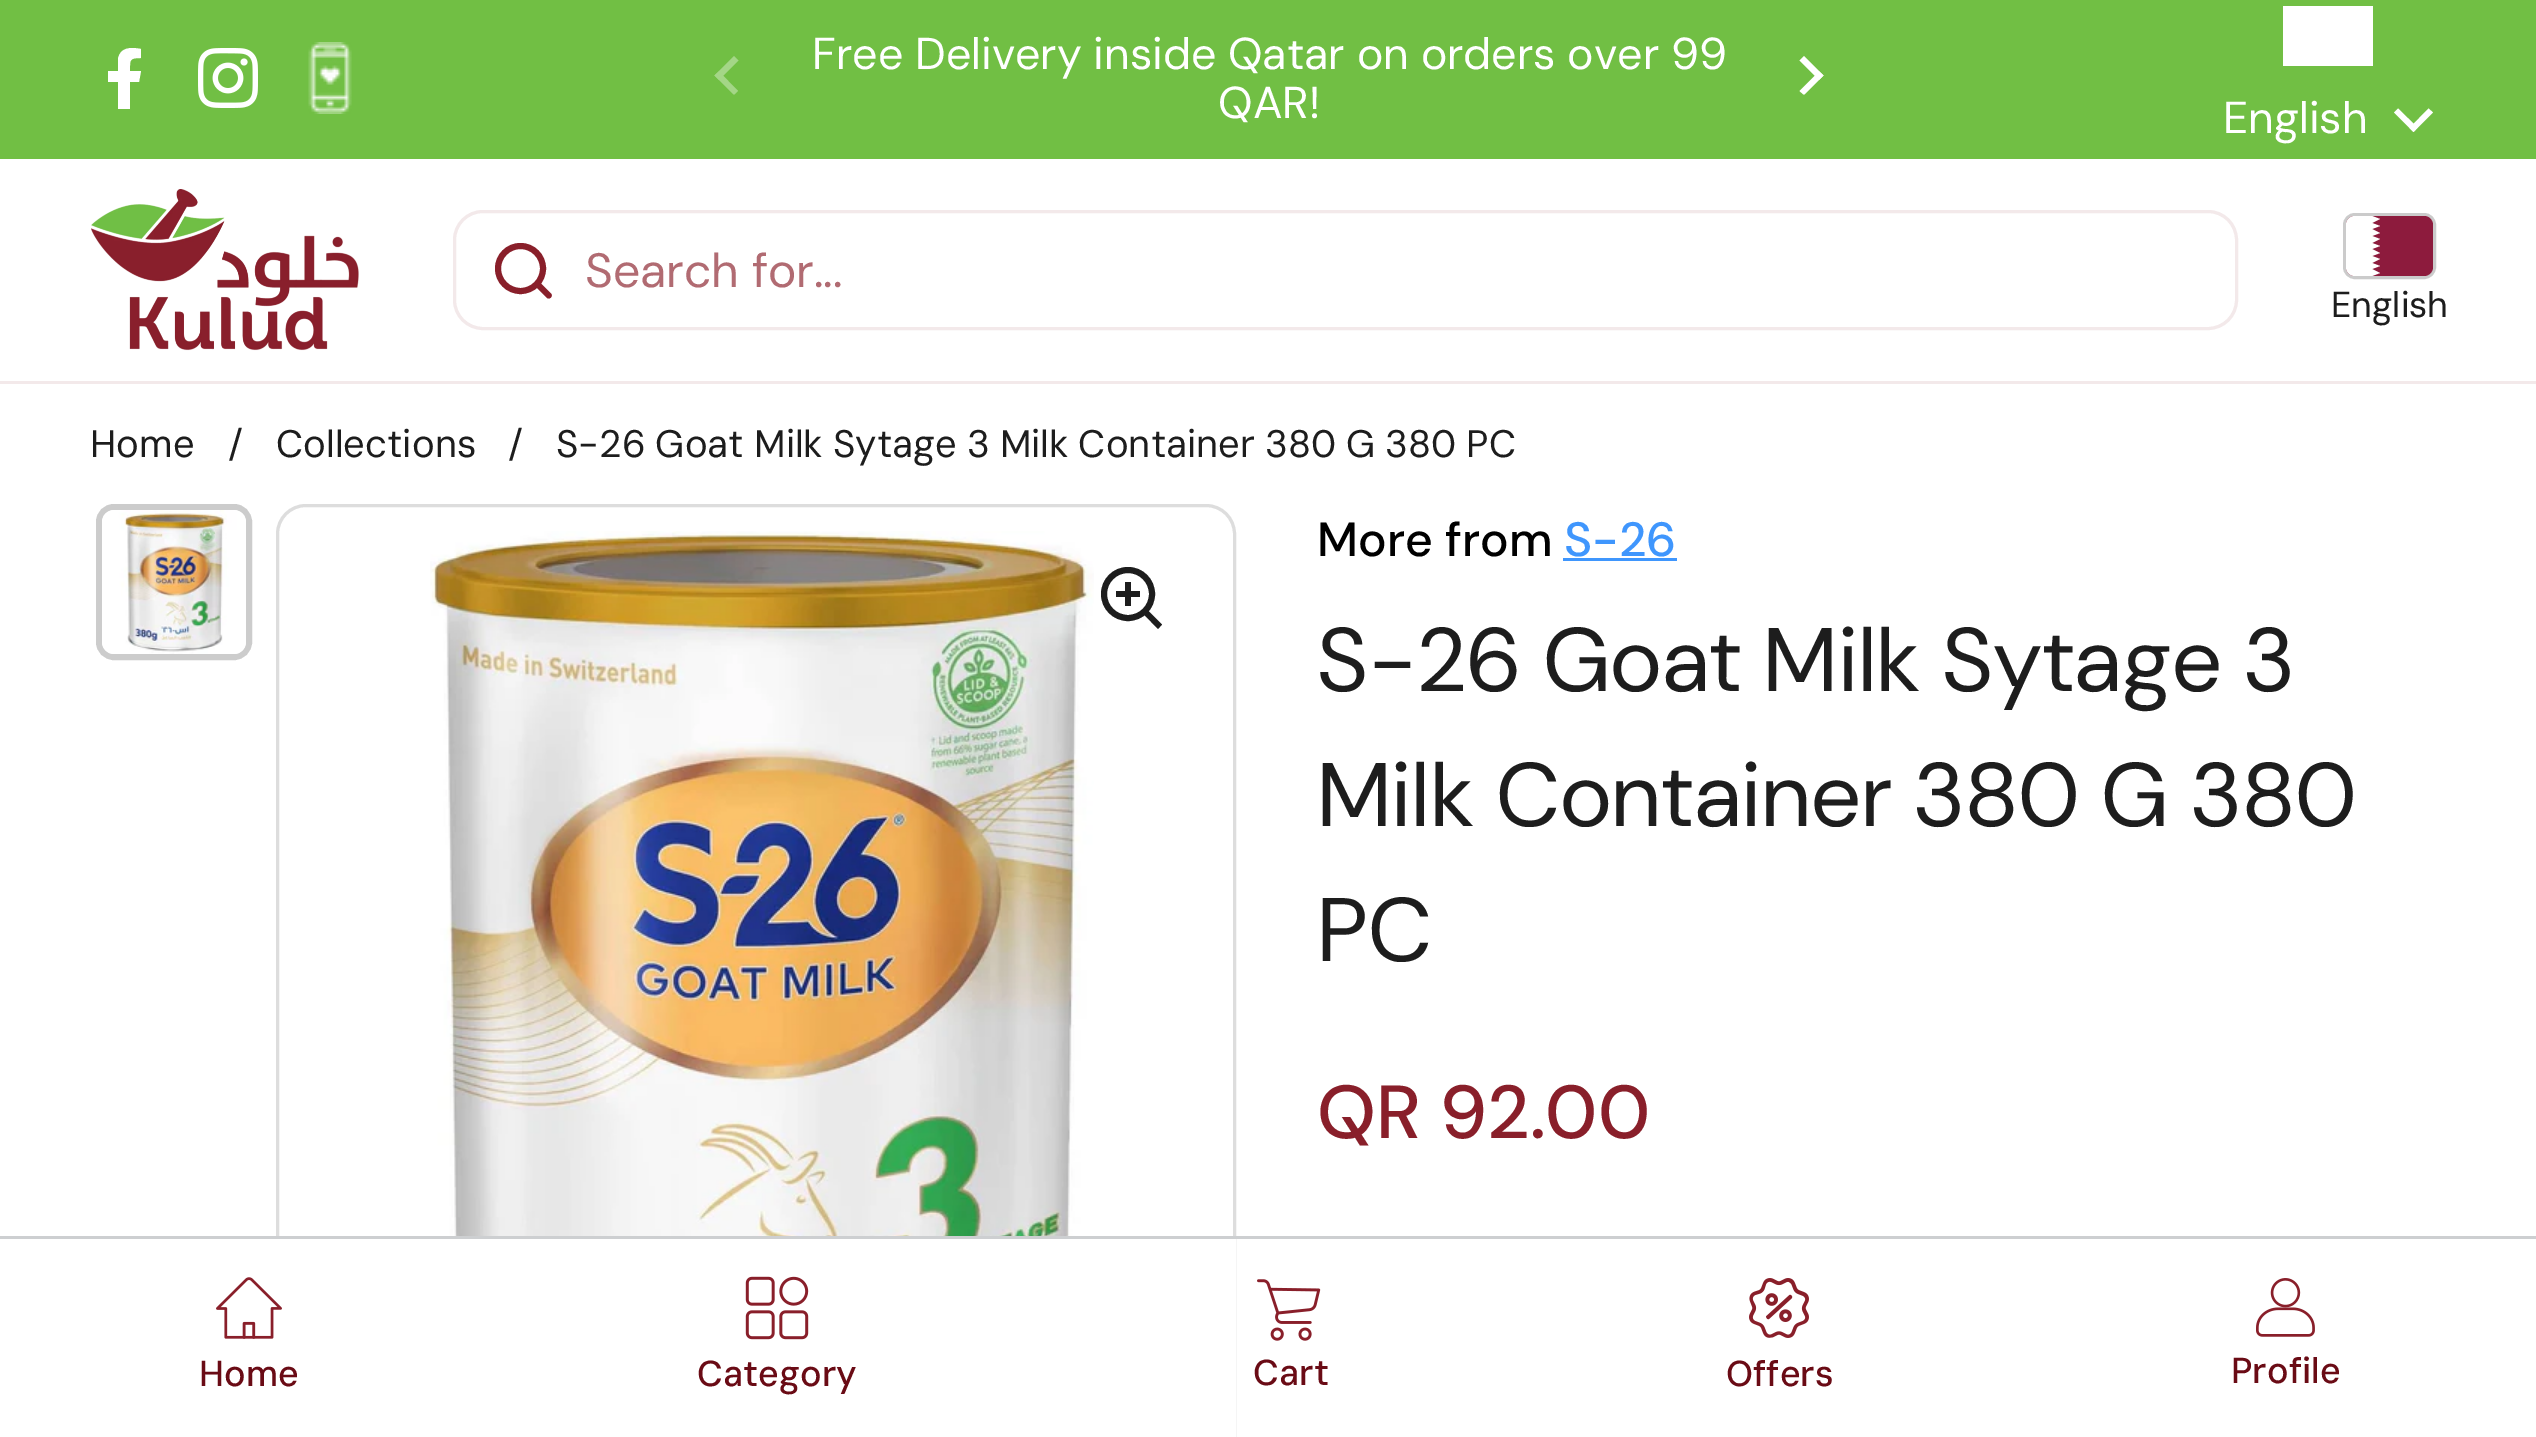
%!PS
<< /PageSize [2536 1437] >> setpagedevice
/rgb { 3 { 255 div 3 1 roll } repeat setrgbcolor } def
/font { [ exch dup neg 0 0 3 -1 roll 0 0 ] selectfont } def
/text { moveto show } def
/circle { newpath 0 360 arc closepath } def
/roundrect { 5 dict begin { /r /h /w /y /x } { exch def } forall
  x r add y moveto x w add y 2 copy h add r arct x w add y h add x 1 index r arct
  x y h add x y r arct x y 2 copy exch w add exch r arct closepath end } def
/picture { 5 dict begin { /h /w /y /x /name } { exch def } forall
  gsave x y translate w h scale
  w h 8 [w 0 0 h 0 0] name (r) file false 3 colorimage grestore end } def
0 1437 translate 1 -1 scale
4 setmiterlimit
255 255 255 rgb
0 0 2536 1437 rectfill
113 191 68 rgb
0 0 2536 159 rectfill
255 255 255 rgb
139 82 moveto 2 -11 rlineto -11 0 rlineto 0 -11 -1 -13 11 -13 rcurveto 0 -9 rlineto -10 -2 -21 -2 -23 10 rcurveto 0 12 rlineto -10 0 rlineto 0 11 rlineto 10 0 rlineto 0 27 rlineto 12 0 rlineto 0 -27 rlineto closepath fill
(img_01.rgb) 198 48 60 60 picture
(img_02.rgb) 308 42 44 72 picture
164 214 135 rgb
738.5 60.5 moveto -19.5 19.5 rlineto -4.5 -4.5 rlineto 19.5 -19.5 rlineto closepath fill
714.5 75.5 moveto 4.5 -4 rlineto 19 19.5 rlineto -3.5 3.5 rlineto -1 0 rlineto closepath fill
255 255 255 rgb
1799.5 91 moveto 19.5 -19.5 rlineto 4.5 4 rlineto -19 19 rlineto -1 0 rlineto closepath fill
1804 56 moveto 19.5 19.5 rlineto -4.5 4.5 rlineto -19.5 -19.5 rlineto closepath fill
2283 6 90 60 rectfill
2398 108.5 moveto 19.5 19 rlineto -4 4.5 rlineto -19.5 -19.5 rlineto closepath fill
2433 112.5 moveto -19.5 19.5 rlineto -4 -4 rlineto 19 -19.5 rlineto closepath fill
243 233 234 rgb
0 381 2536 3 rectfill
(img_03.rgb) 91 189 268 162 picture
3 setlinewidth
454.5 211.5 1782 117 28.5 roundrect stroke
137 31 42 rgb
6 setlinewidth
520.5 268.5 22.5 circle stroke
540.5 283 moveto -2.5 -2 rlineto -4 4 rlineto 2 2 rlineto closepath 546.5 297.5 moveto 3 3 7 -1.5 4.5 -4 rcurveto closepath 536 287 moveto 10.5 10.5 rlineto 4.5 -4 rlineto -10.5 -10.5 rlineto closepath fill
203 203 203 rgb
3 setlinewidth
2344.5 214.5 90 63 10.5 roundrect stroke
141 27 61 rgb
2346 216 87 60 9 roundrect fill
255 255 255 rgb
2372 276 moveto 8 -3 rlineto -8 -4 rlineto 8 -3 rlineto -8 -3 rlineto 8 -4 rlineto -8 -3 rlineto 8 -3 rlineto -8 -4 rlineto 8 -3 rlineto -8 -3 rlineto 8 -4 rlineto -8 -3 rlineto 8 -3 rlineto -8 -4 rlineto 8 -3 rlineto -8 -3 rlineto 8 -4 rlineto -8 -3 rlineto -17 0 rlineto -5 0 -9 4 -9 9 rcurveto 0 42 rlineto 0 5 4 9 9 9 rcurveto closepath fill
204 204 204 rgb
6 setlinewidth
99 507 150 150 15 roundrect stroke
(img_04.rgb) 102 510 144 144 picture
221 221 221 rgb
3 setlinewidth
277.5 505.5 957 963 28.5 roundrect stroke
(img_05.rgb) 430 531 664 705 picture
29 29 29 rgb
6 setlinewidth
1128 594 24 circle stroke
1125 582 6 24 rectfill
1116 591 24 6 rectfill
1144 614.5 moveto 4 -4 rlineto 14 14 rlineto -4 4.5 rlineto closepath fill
63 150 253 rgb
1563 558 114 3 rectfill
255 255 255 rgb
276 1239 960 198 rectfill
205 207 209 rgb
0 1236 2536 3 rectfill
(img_06.rgb) 216 1277 66 62 picture
(img_07.rgb) 745 1276 64 64 picture
(img_08.rgb) 1257 1279 64 62 picture
(img_09.rgb) 1749 1278 60 60 picture
(img_10.rgb) 2256 1278 59 59 picture
/DMSans-Regular 44.6 font
255 255 255 rgb
(Free Delivery inside Qatar on orders over 99) 812 69 text
(QAR!) 1218 118 text
(English) 2223 133 text
/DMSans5-Regular 48 font
177 107 114 rgb
(Search for...) 585 287 text
/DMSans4-Regular 36 font
29 29 29 rgb
(English) 2331 317 text
/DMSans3-Regular 38.25 font
(Home) 90 457 text
(/) 228 457 text
(Collections) 276 457 text
(/) 508 457 text
556 457 moveto -0.25 0 32 (S-26 Goat Milk Sytage 3 Milk Container 380 G 380 PC) widthshow
/DMSans-Medium 48 font
0 0 0 rgb
(More from) 1317 556 text
63 150 253 rgb
(S-26) 1564 556 text
/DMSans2-Regular 90 font
29 29 29 rgb
(S-26 Goat Milk Sytage 3) 1317 691 text
(Milk Container 380 G 380) 1317 826 text
(PC) 1317 961 text
/DMSans2-Medium 75 font
137 31 42 rgb
(QR 92.00) 1317 1138 text
/DMSans3-Medium 36 font
106 11 21 rgb
(Home) 199 1386 text
(Category) 697 1386 text
(Cart) 1253 1385 text
(Offers) 1726 1386 text
(Profile) 2231 1383 text
showpage
